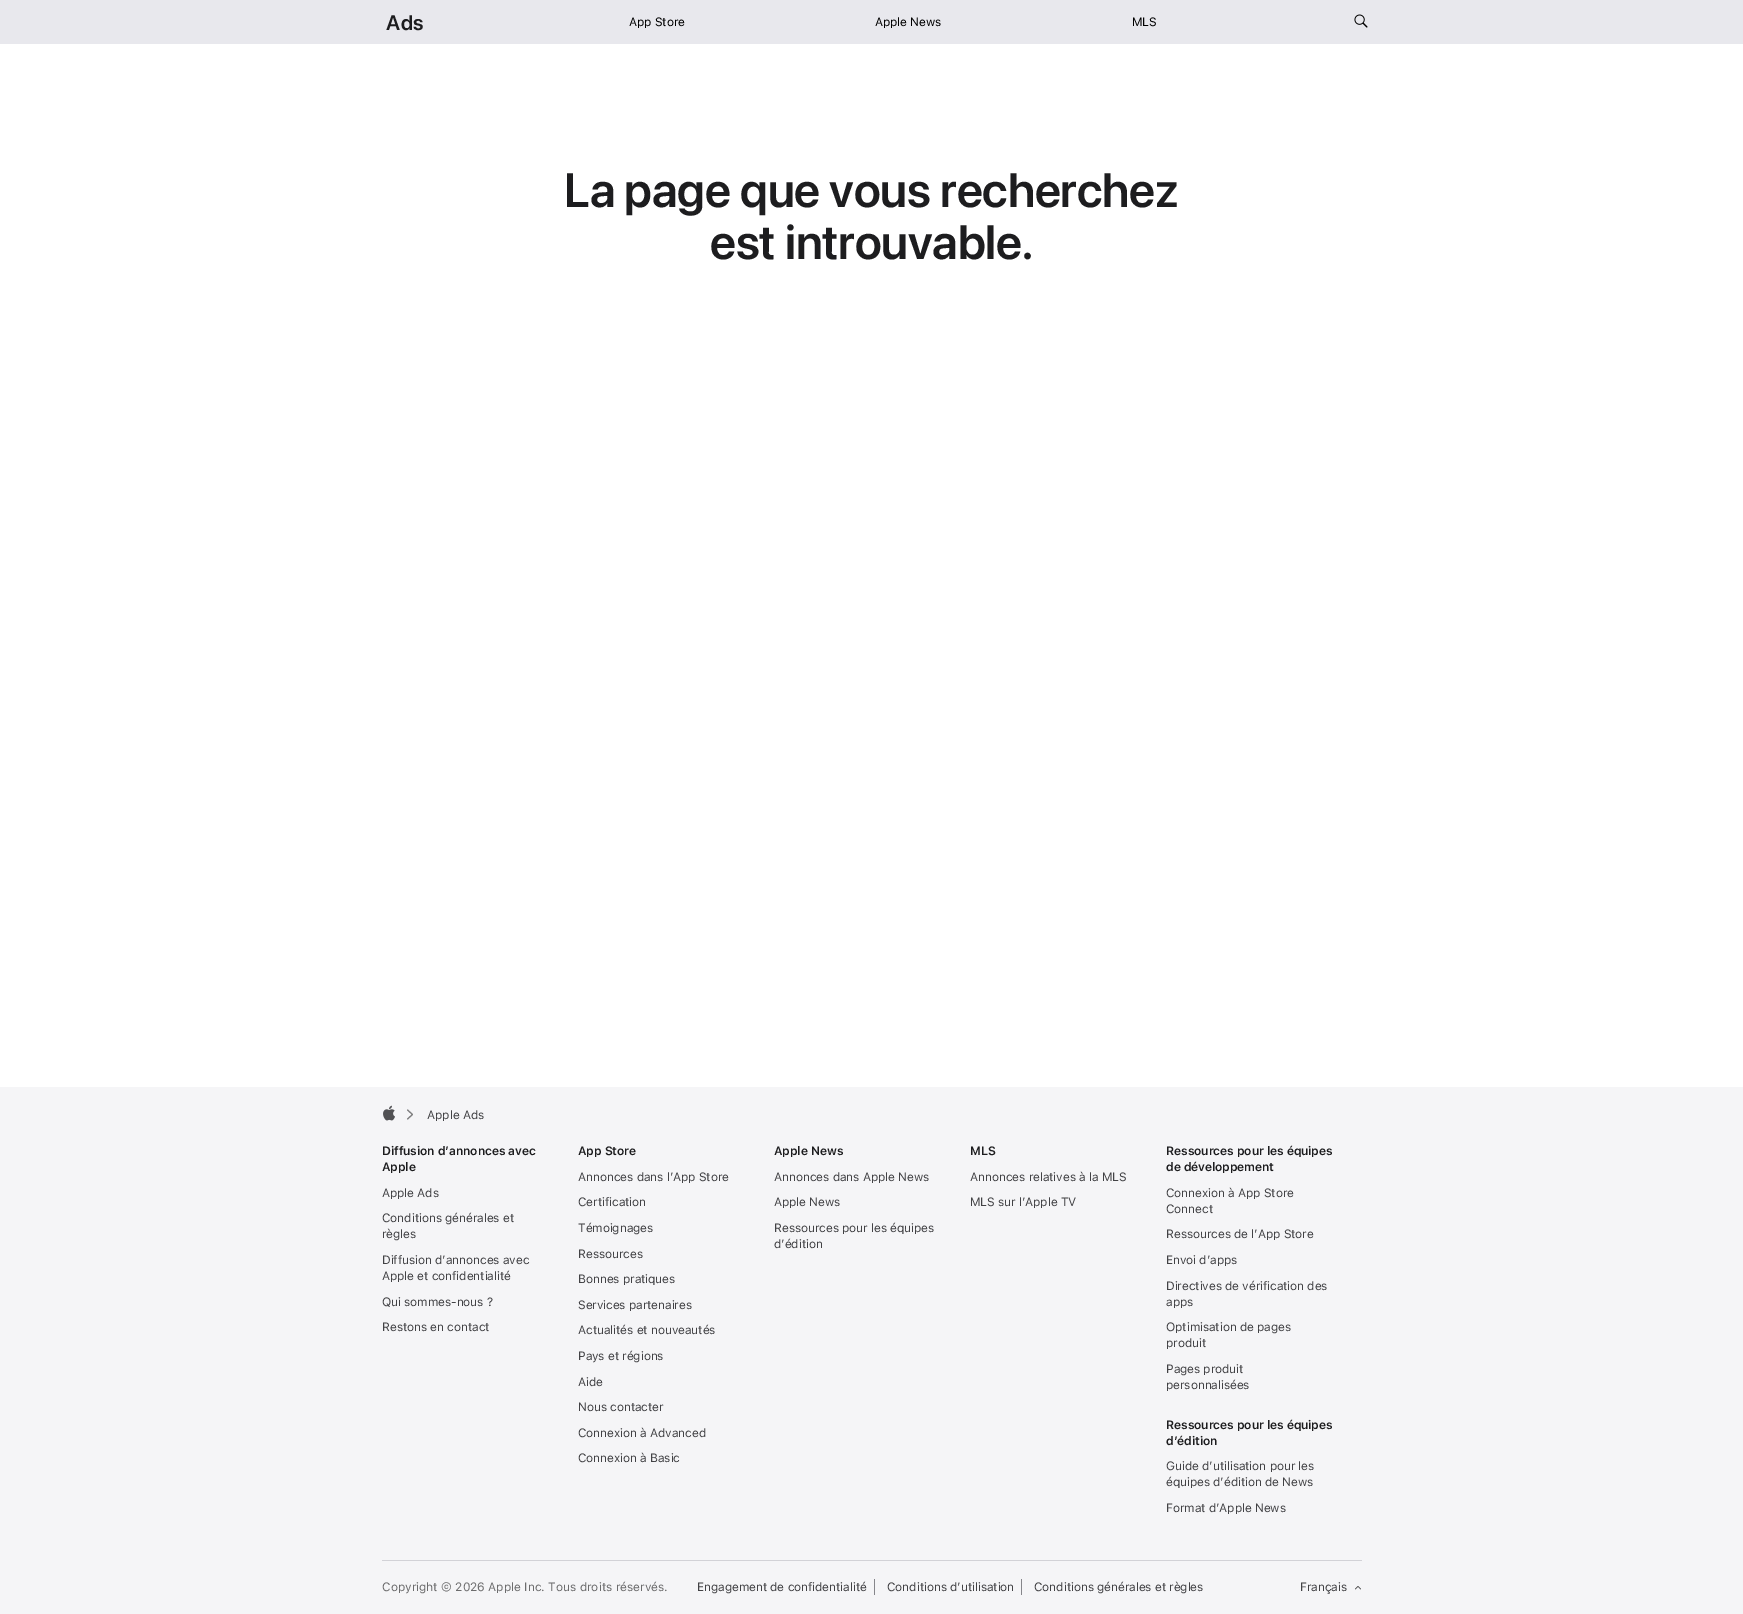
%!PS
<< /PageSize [1743 1614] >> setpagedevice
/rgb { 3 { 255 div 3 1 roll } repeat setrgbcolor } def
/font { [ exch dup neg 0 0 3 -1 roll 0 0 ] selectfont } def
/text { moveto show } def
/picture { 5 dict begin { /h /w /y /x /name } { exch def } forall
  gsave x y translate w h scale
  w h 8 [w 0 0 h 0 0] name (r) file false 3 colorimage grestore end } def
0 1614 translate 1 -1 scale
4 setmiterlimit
255 255 255 rgb
0 0 1743 1614 rectfill
232 232 237 rgb
0 0 1743 44 rectfill
(img_01.rgb) 1354 14 14 14 picture
245 245 247 rgb
0 1087 1743 527 rectfill
(img_02.rgb) 383 1105 12 16 picture
127 127 128 rgb
1.1 setlinewidth
1 setlinecap
1 setlinejoin
407.5 1110 moveto 5 4.5 rlineto -5 4.5 rlineto stroke
210 210 215 rgb
382 1560 980 1 rectfill
134 134 139 rgb
874 1579 1 16 rectfill
1021 1579 1 16 rectfill
(img_03.rgb) 1355 1586 6 4 picture
/SFProDisplay-SemiBold 21 font
29 29 31 rgb
382 30 moveto 0.25 0 ( Ads) ashow
/SFProText-Regular 12 font
0 0 0 rgb
629 26 moveto -0.1 0 (App Store) ashow
875 26 moveto -0.1 0 (Apple News) ashow
1132 26 moveto -0.1 0 (MLS) ashow
/SFProDisplay-SemiBold 48 font
29 29 31 rgb
564 207 moveto -0.15 0 (La page que vous recherchez) ashow
710 259 moveto -0.15 0 (est introuvable.) ashow
/SFProText-Regular 12 font
66 66 69 rgb
(Apple Ads) 427 1119 text
/SFProText-SemiBold 12 font
29 29 31 rgb
382 1155 moveto -0.1 0 (Diffusion d’annonces avec) ashow
382 1171 moveto -0.1 0 (Apple) ashow
/SFProText-Regular 12 font
66 66 69 rgb
382 1197 moveto -0.1 0 (Apple Ads) ashow
382 1222 moveto -0.1 0 (Conditions générales et) ashow
382 1238 moveto -0.1 0 (règles) ashow
382 1264 moveto -0.1 0 (Diffusion d’annonces avec) ashow
382 1280 moveto -0.1 0 (Apple et confidentialité) ashow
382 1306 moveto -0.1 0 (Qui sommes-nous ?) ashow
382 1331 moveto -0.1 0 (Restons en contact) ashow
/SFProText-SemiBold 12 font
29 29 31 rgb
578 1155 moveto -0.1 0 (App Store) ashow
/SFProText-Regular 12 font
66 66 69 rgb
578 1181 moveto -0.1 0 (Annonces dans l’App Store) ashow
578 1206 moveto -0.1 0 (Certification) ashow
578 1232 moveto -0.1 0 (Témoignages) ashow
578 1258 moveto -0.1 0 (Ressources) ashow
578 1283 moveto -0.1 0 (Bonnes pratiques) ashow
578 1309 moveto -0.1 0 (Services partenaires) ashow
578 1334 moveto -0.1 0 (Actualités et nouveautés) ashow
578 1360 moveto -0.1 0 (Pays et régions) ashow
578 1386 moveto -0.1 0 (Aide) ashow
578 1411 moveto -0.1 0 (Nous contacter) ashow
578 1437 moveto -0.1 0 (Connexion à Advanced) ashow
578 1462 moveto -0.1 0 (Connexion à Basic) ashow
/SFProText-SemiBold 12 font
29 29 31 rgb
774 1155 moveto -0.1 0 (Apple News) ashow
/SFProText-Regular 12 font
66 66 69 rgb
774 1181 moveto -0.1 0 (Annonces dans Apple News) ashow
774 1206 moveto -0.1 0 (Apple News) ashow
774 1232 moveto -0.1 0 (Ressources pour les équipes) ashow
774 1248 moveto -0.1 0 (d’édition) ashow
/SFProText-SemiBold 12 font
29 29 31 rgb
970 1155 moveto -0.1 0 (MLS) ashow
/SFProText-Regular 12 font
66 66 69 rgb
970 1181 moveto -0.1 0 (Annonces relatives à la MLS) ashow
970 1206 moveto -0.1 0 (MLS sur l’Apple TV) ashow
/SFProText-SemiBold 12 font
29 29 31 rgb
1166 1155 moveto -0.1 0 (Ressources pour les équipes) ashow
1166 1171 moveto -0.1 0 (de développement) ashow
/SFProText-Regular 12 font
66 66 69 rgb
1166 1197 moveto -0.1 0 (Connexion à App Store) ashow
1166 1213 moveto -0.1 0 (Connect) ashow
1166 1238 moveto -0.1 0 (Ressources de l’App Store) ashow
1166 1264 moveto -0.1 0 (Envoi d’apps) ashow
1166 1290 moveto -0.1 0 (Directives de vérification des) ashow
1166 1306 moveto -0.1 0 (apps) ashow
1166 1331 moveto -0.1 0 (Optimisation de pages) ashow
1166 1347 moveto -0.1 0 (produit) ashow
1166 1373 moveto -0.1 0 (Pages produit) ashow
1166 1389 moveto -0.1 0 (personnalisées) ashow
/SFProText-SemiBold 12 font
29 29 31 rgb
1166 1429 moveto -0.1 0 (Ressources pour les équipes) ashow
1166 1445 moveto -0.1 0 (d’édition) ashow
/SFProText-Regular 12 font
66 66 69 rgb
1166 1470 moveto -0.1 0 (Guide d’utilisation pour les) ashow
1166 1486 moveto -0.1 0 (équipes d’édition de News) ashow
1166 1512 moveto -0.1 0 (Format d’Apple News) ashow
108 108 109 rgb
(Copyright © 2026 Apple Inc. Tous droits réservés.) 382 1591 text
66 66 69 rgb
697 1591 moveto -0.1 0 (Engagement de confidentialité) ashow
887 1591 moveto -0.1 0 (Conditions d’utilisation) ashow
1034 1591 moveto -0.1 0 (Conditions générales et règles) ashow
1300 1591 moveto -0.1 0 (Français) ashow
showpage
